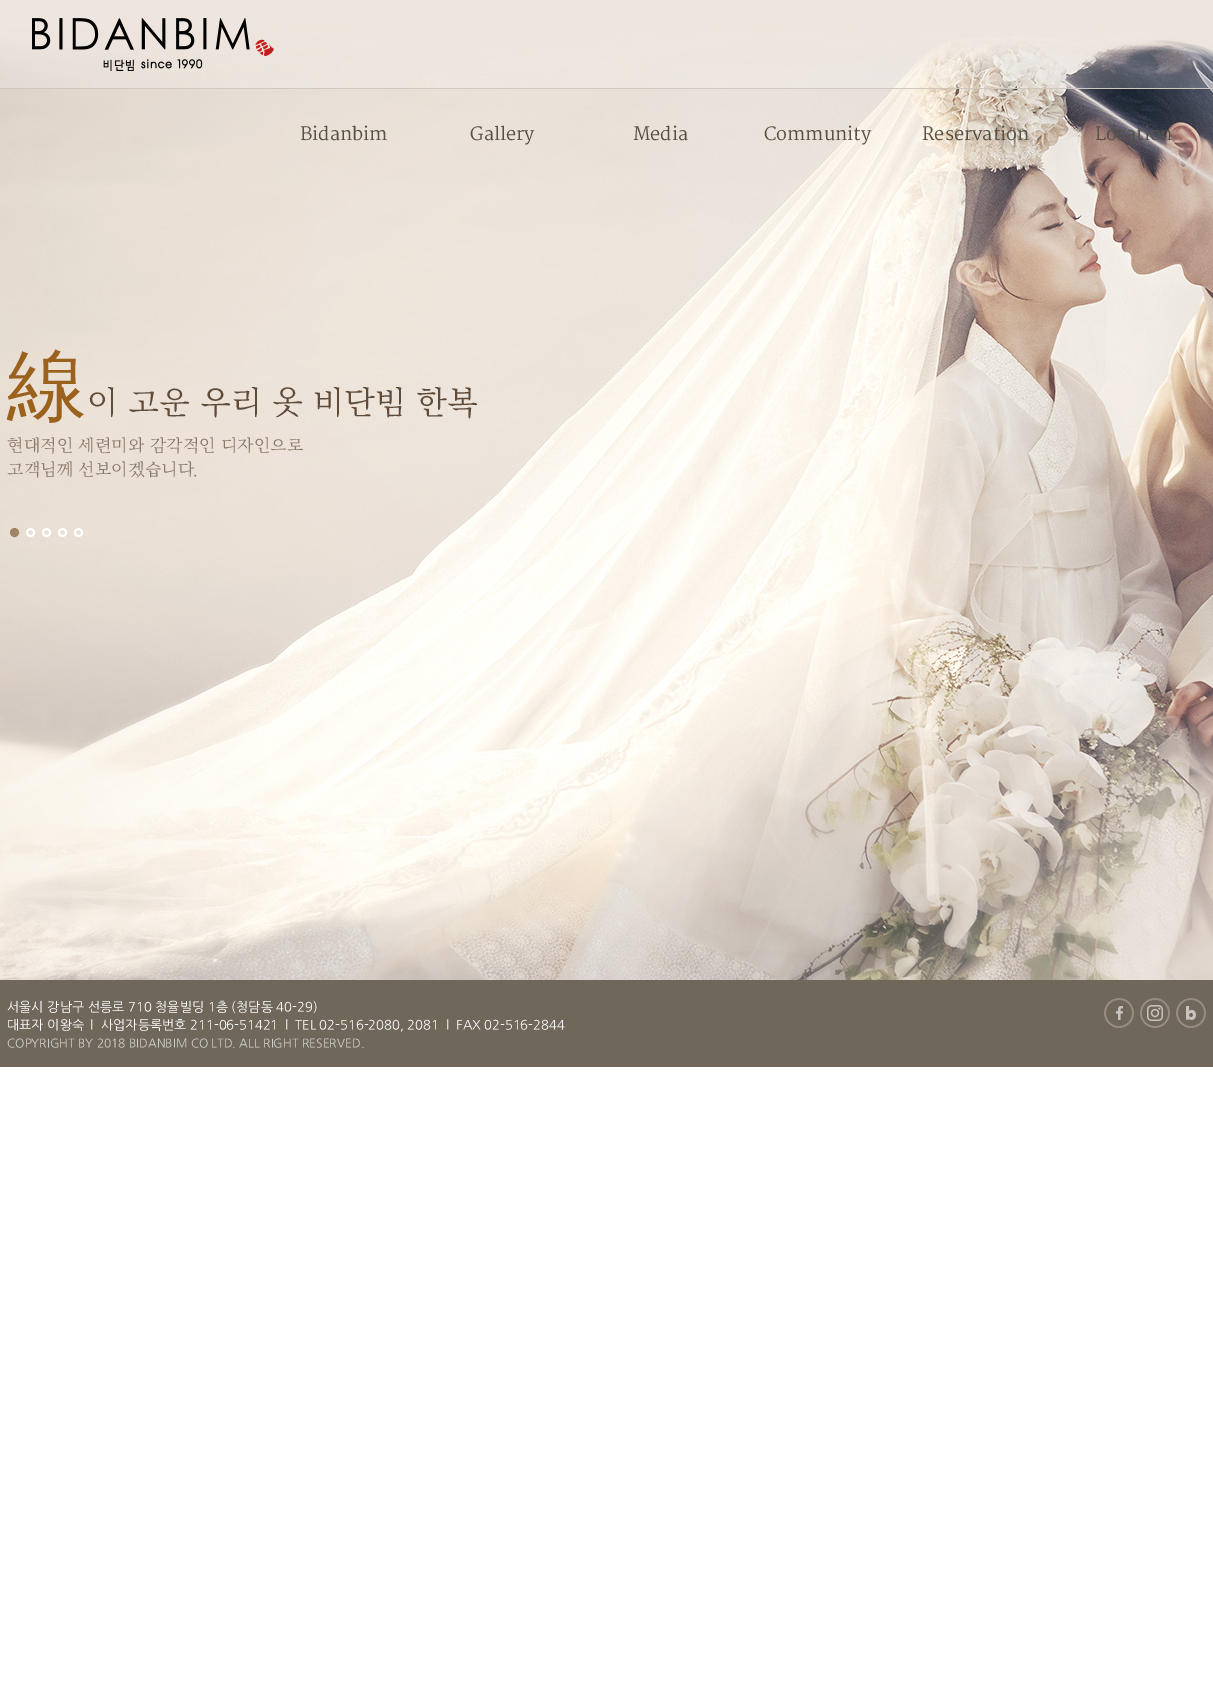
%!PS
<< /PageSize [1213 1702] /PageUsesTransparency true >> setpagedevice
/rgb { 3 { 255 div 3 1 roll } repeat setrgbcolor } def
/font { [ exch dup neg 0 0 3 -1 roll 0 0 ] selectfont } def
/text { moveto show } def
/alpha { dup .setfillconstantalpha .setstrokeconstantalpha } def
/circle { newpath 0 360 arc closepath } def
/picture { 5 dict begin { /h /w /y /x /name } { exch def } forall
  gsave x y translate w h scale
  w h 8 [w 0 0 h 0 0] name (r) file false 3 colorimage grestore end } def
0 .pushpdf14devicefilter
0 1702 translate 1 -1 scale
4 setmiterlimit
255 255 255 rgb
0 0 1213 1702 rectfill
(img_02.rgb) 0 0 1213 980 picture
0.2 alpha
0 0 1213 88 rectfill
1 alpha
206 200 192 rgb
0 88 1213 1 rectfill
(img_01.rgb) 32 18 242 53 picture
158 133 102 rgb
14.5 532.5 3.5 circle gsave fill grestore
2 setlinewidth
stroke
254 254 253 rgb
30.5 532.5 3.5 circle stroke
46.5 532.5 3.5 circle stroke
62.5 532.5 3.5 circle stroke
78.5 532.5 3.5 circle stroke
111 103 90 rgb
0 980 1213 87 rectfill
(img_03.rgb) 1104 998 30 30 picture
(img_04.rgb) 1140 998 30 30 picture
(img_05.rgb) 1176 998 30 30 picture
/Martel-Regular 18 font
86 80 69 rgb
(Bidanbim) 300 140 text
(Gallery) 470 140 text
(Media) 633 140 text
(Community) 764 140 text
(Reservation) 922 140 text
(Location) 1095 140 text
gsave
7 0 1200 482 rectclip
/WenQuanYiZenHei-Medium 80 font
155 98 30 rgb
(線) 7 413 text
grestore
/JejuMyeongjo-Regular 34 font
95 75 56 rgb
(이 고운 우리 옷 비단빔 한복) 87 413 text
/JejuMyeongjo-Regular 18 font
137 119 103 rgb
(현대적인 세련미와 감각적인 디자인으로) 7 451 text
(고객님께 선보이겠습니다.) 7 475 text
/NanumGothic-Regular 13 font
255 255 255 rgb
(서울시 강남구 선릉로 710 청율빌딩 1층 \(청담동 40-29\)) 7 1011 text
(대표자 이왕숙) 7 1029 text
(l) 90 1029 text
(사업자등록번호 211-06-51421) 101 1029 text
(l) 285 1029 text
(TEL 02-516-2080, 2081) 295 1029 text
(l) 446 1029 text
(FAX 02-516-2844) 456 1029 text
/NanumGothic-Regular 12 font
209 208 207 rgb
(COPYRIGHT BY 2018 BIDANBIM CO LTD. ALL RIGHT RESERVED.) 7 1047 text
.poppdf14devicefilter showpage
